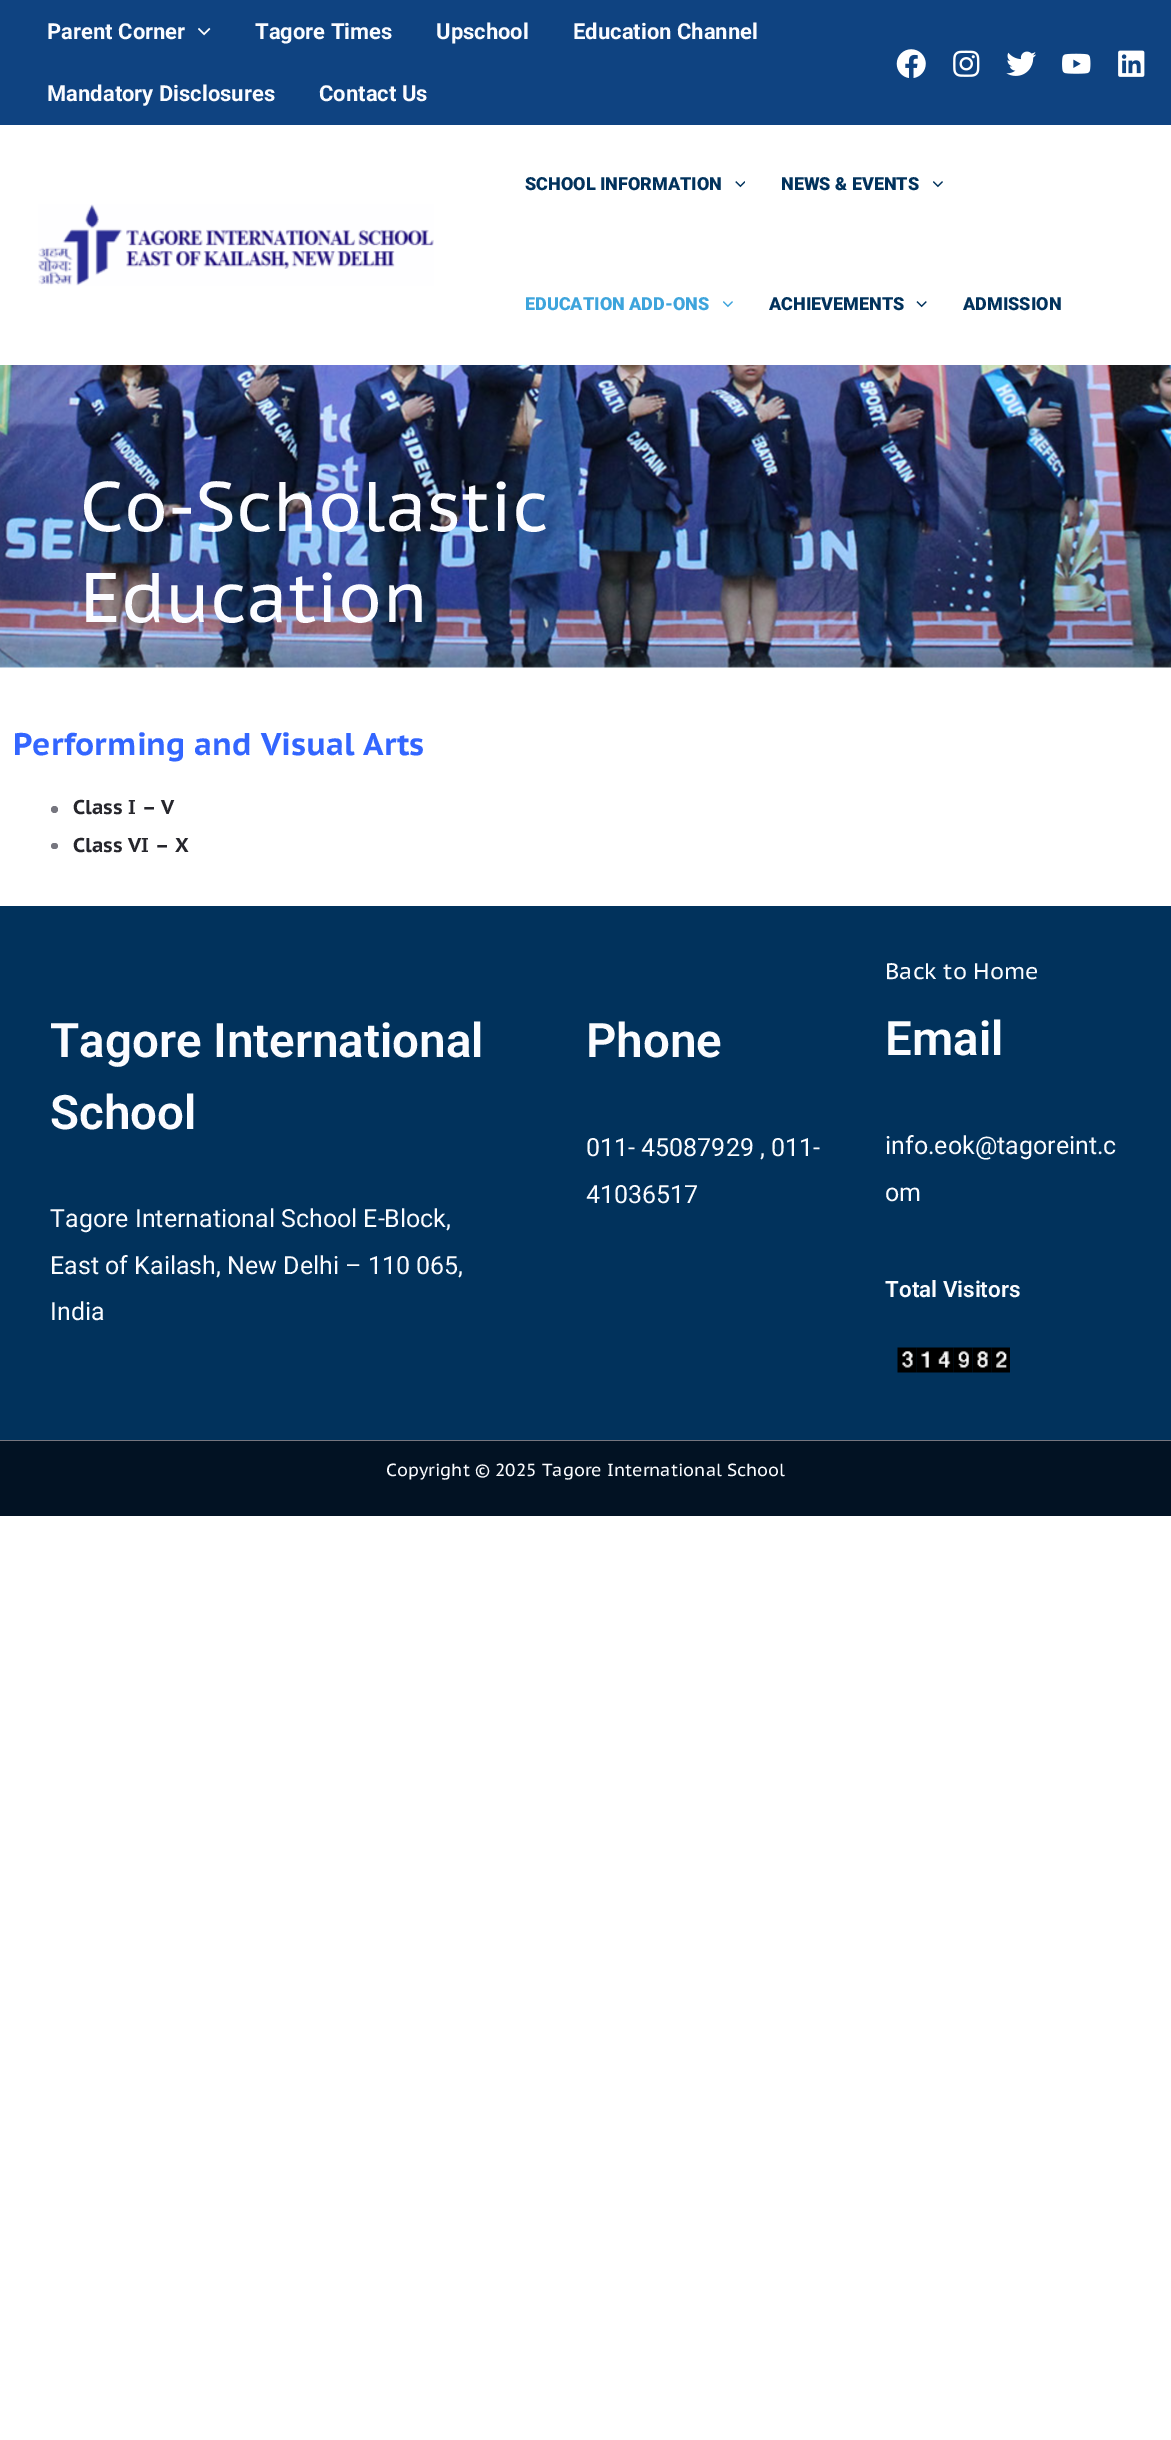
%!PS
<< /PageSize [1171 2440] >> setpagedevice
/rgb { 3 { 255 div 3 1 roll } repeat setrgbcolor } def
/font { [ exch dup neg 0 0 3 -1 roll 0 0 ] selectfont } def
/text { moveto show } def
/circle { newpath 0 360 arc closepath } def
/roundrect { 5 dict begin { /r /h /w /y /x } { exch def } forall
  x r add y moveto x w add y 2 copy h add r arct x w add y h add x 1 index r arct
  x y h add x y r arct x y 2 copy exch w add exch r arct closepath end } def
/picture { 5 dict begin { /h /w /y /x /name } { exch def } forall
  gsave x y translate w h scale
  w h 8 [w 0 0 h 0 0] name (r) file false 3 colorimage grestore end } def
0 2440 translate 1 -1 scale
4 setmiterlimit
255 255 255 rgb
0 0 1171 2440 rectfill
15 67 129 rgb
0 0 1171 125 rectfill
(img_01.rgb) 198 27 13 9 picture
(img_02.rgb) 896 49 30 29 picture
(img_03.rgb) 953 50 27 27 picture
(img_04.rgb) 1006 51 30 25 picture
(img_05.rgb) 1062 53 29 21 picture
(img_06.rgb) 1118 50 27 27 picture
(img_07.rgb) 38 204 396 82 picture
(img_08.rgb) 735 181 10 7 picture
(img_09.rgb) 933 181 10 7 picture
(img_10.rgb) 723 301 10 7 picture
(img_11.rgb) 916 301 11 7 picture
(img_12.rgb) 0 365 1171 303 picture
118 118 127 rgb
54.5 809.5 3.5 circle fill
51 843 7 6 3 roundrect fill
1 50 92 rgb
0 906 1171 534 rectfill
(img_13.rgb) 897 1347 20 26 picture
(img_14.rgb) 916 1347 19 26 picture
(img_15.rgb) 935 1347 19 26 picture
(img_16.rgb) 953 1347 20 26 picture
(img_17.rgb) 972 1347 20 26 picture
(img_18.rgb) 991 1347 19 26 picture
2 18 35 rgb
0 1441 1171 75 rectfill
118 118 127 rgb
0 1440 1171 1 rectfill
/Roboto-Bold 22 font
251 252 255 rgb
(Parent Corner) 47 39 text
(Tagore Times) 255 39 text
(Upschool) 436 39 text
(Education Channel) 573 39 text
(Mandatory Disclosures) 47 101 text
(Contact Us) 319 101 text
/Roboto-Black 18 font
1 50 92 rgb
(SCHOOL INFORMATION) 525 190 text
(NEWS & EVENTS) 781 190 text
61 164 220 rgb
(EDUCATION ADD-ONS) 525 310 text
1 50 92 rgb
(ACHIEVEMENTS) 769 310 text
(ADMISSION) 963 310 text
/PTSansCaption-Regular 70 font
251 252 255 rgb
(Co-Scholastic) 80 531 text
(Education) 80 622 text
/PTSansCaption-Bold 31.25 font
51 102 255 rgb
(Performing and Visual Arts) 13 755 text
/PTSansCaption-Bold 20 font
38 38 44 rgb
(Class I – V) 73 814 text
(Class VI – X) 73 852 text
/Roboto-SemiBold 47.5 font
251 252 255 rgb
(Tagore International) 50 1057 text
(School) 50 1129 text
/Roboto-Regular 25 font
(Tagore International School E-Block,) 50 1227 text
(East of Kailash, New Delhi – 110 065,) 50 1274 text
(India) 50 1320 text
/Roboto-SemiBold 47.5 font
(Phone) 586 1057 text
/Roboto-Regular 25 font
(011- 45087929 , 011-) 586 1156 text
(41036517) 586 1203 text
/PTSansCaption-Regular 22.5 font
(Back to Home) 885 979 text
/Roboto-SemiBold 47.5 font
(Email) 885 1055 text
/Roboto-Regular 25 font
(info.eok@tagoreint.c) 885 1154 text
(om) 885 1201 text
/Roboto-SemiBold 22.5 font
(Total Visitors) 885 1297 text
/PTSansCaption-Regular 17.5 font
(Copyright © 2025 Tagore International School) 386 1476 text
showpage
